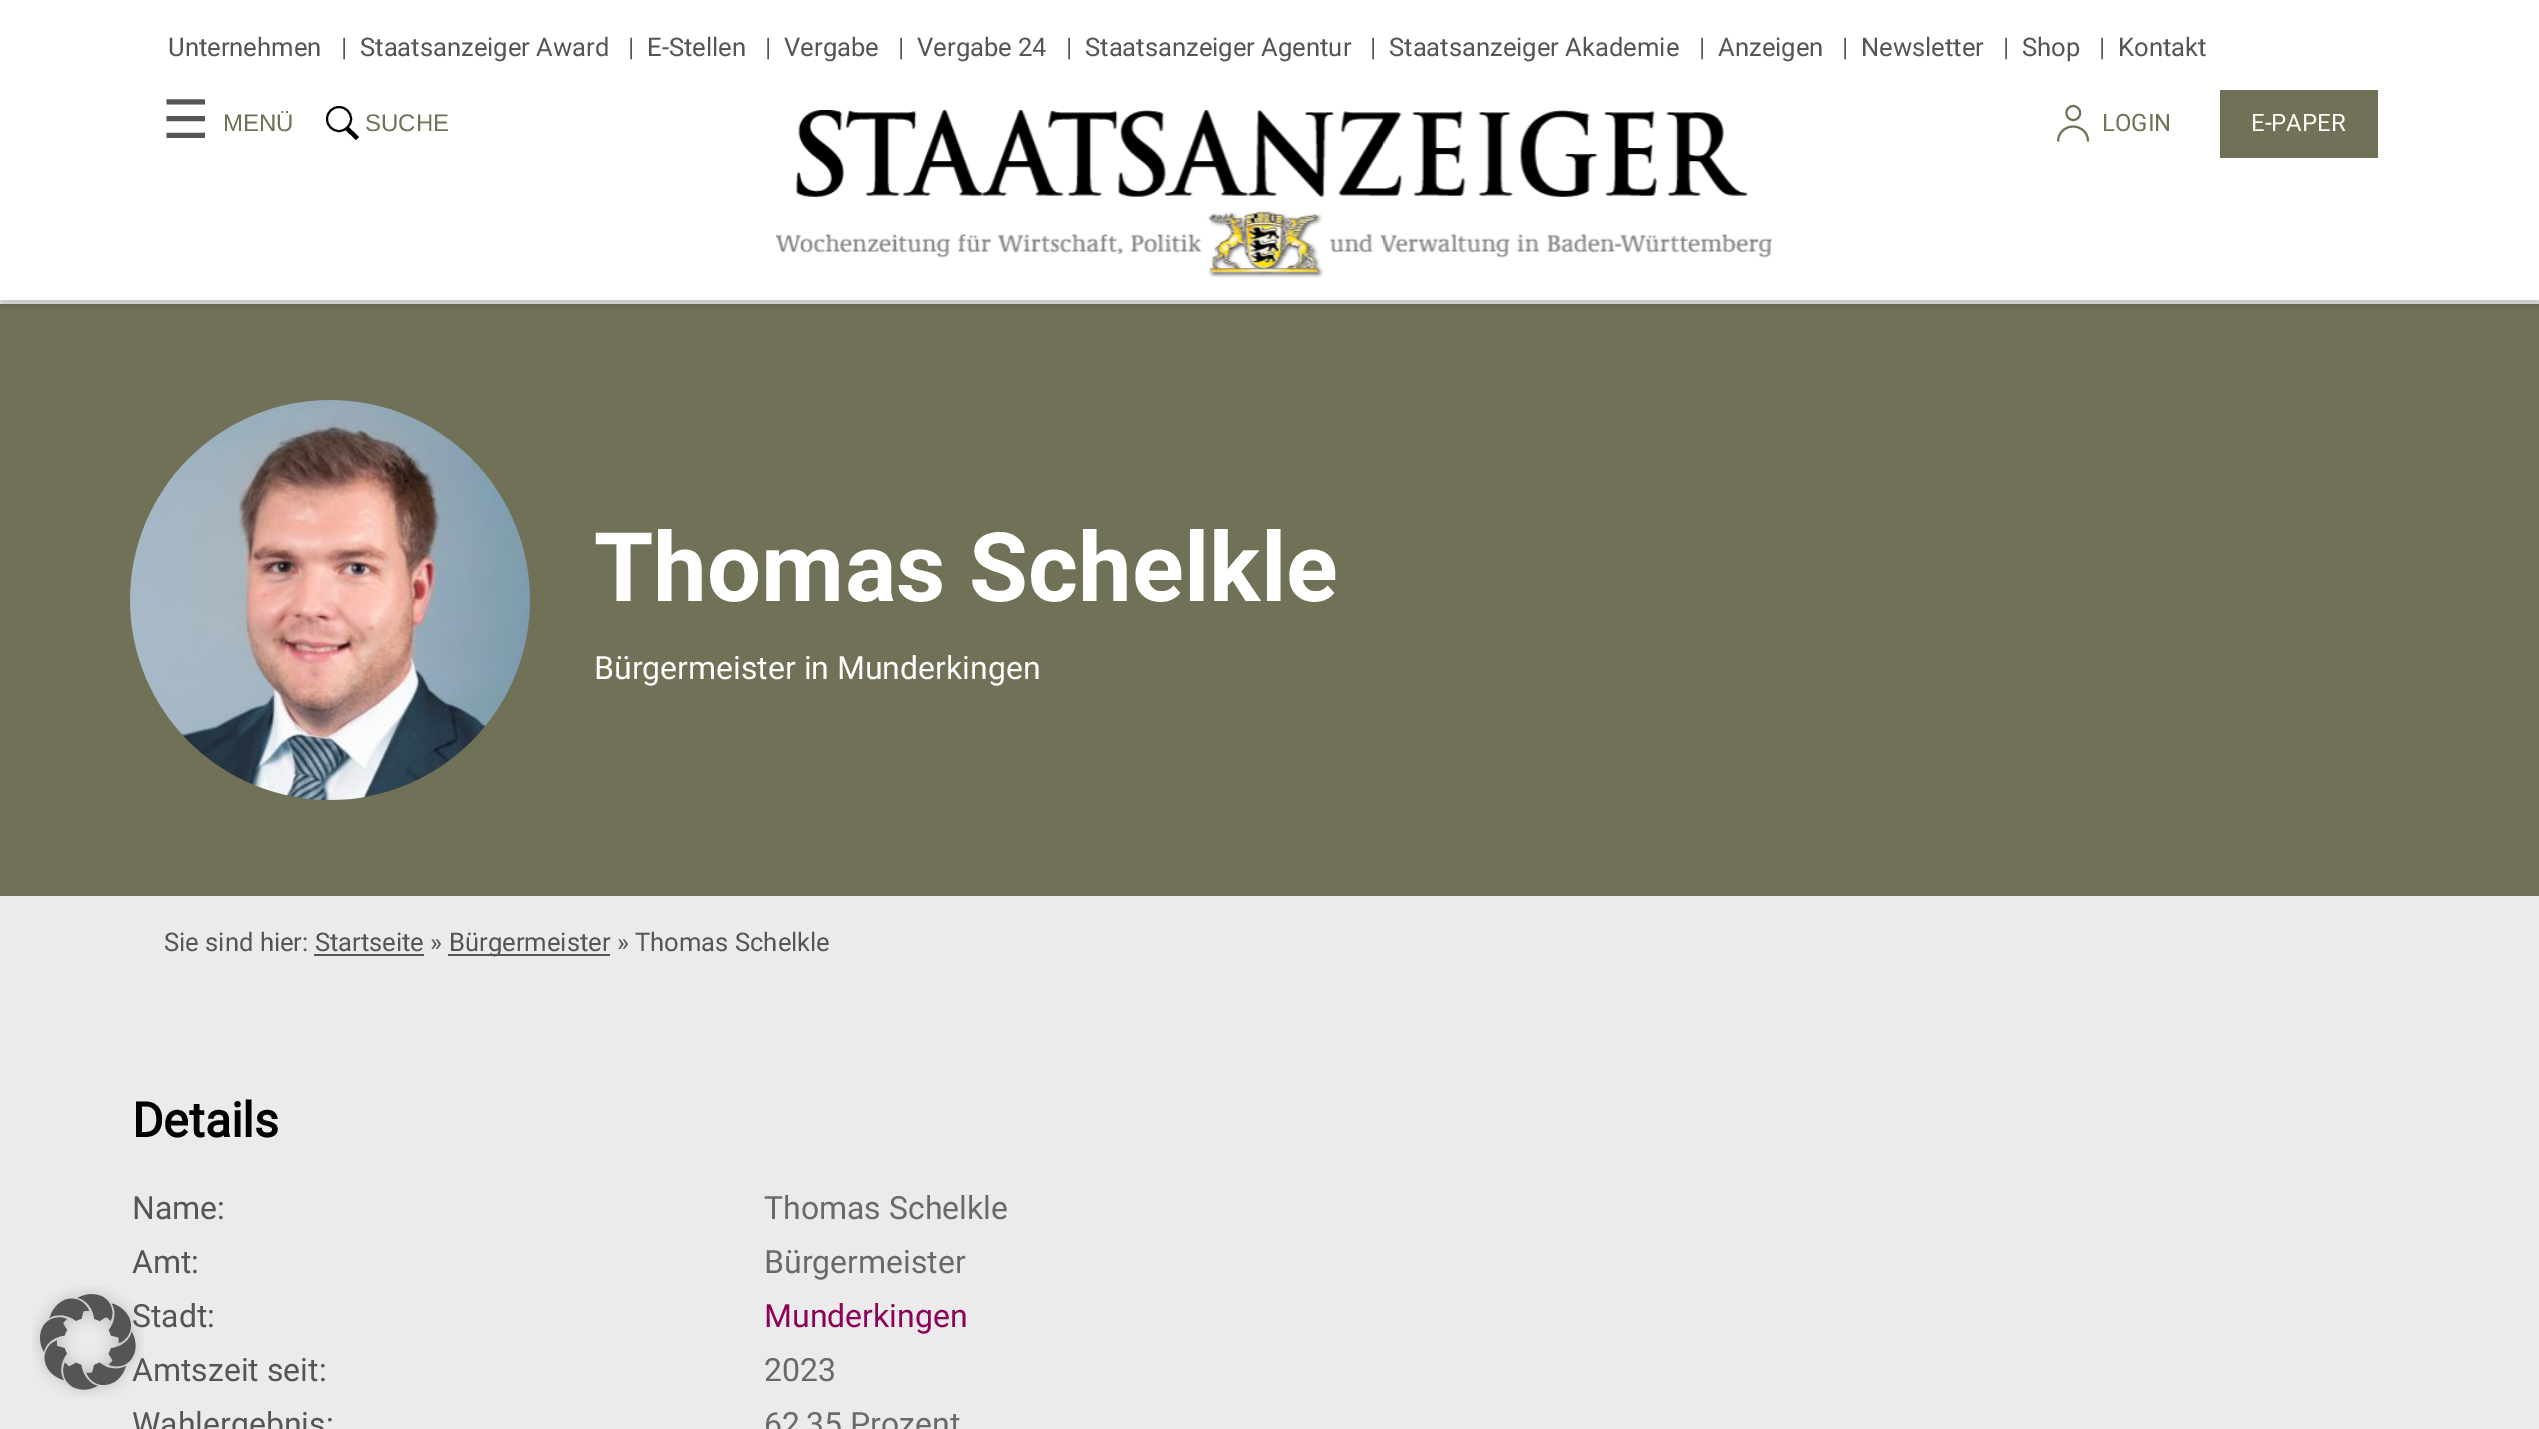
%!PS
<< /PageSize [2539 1429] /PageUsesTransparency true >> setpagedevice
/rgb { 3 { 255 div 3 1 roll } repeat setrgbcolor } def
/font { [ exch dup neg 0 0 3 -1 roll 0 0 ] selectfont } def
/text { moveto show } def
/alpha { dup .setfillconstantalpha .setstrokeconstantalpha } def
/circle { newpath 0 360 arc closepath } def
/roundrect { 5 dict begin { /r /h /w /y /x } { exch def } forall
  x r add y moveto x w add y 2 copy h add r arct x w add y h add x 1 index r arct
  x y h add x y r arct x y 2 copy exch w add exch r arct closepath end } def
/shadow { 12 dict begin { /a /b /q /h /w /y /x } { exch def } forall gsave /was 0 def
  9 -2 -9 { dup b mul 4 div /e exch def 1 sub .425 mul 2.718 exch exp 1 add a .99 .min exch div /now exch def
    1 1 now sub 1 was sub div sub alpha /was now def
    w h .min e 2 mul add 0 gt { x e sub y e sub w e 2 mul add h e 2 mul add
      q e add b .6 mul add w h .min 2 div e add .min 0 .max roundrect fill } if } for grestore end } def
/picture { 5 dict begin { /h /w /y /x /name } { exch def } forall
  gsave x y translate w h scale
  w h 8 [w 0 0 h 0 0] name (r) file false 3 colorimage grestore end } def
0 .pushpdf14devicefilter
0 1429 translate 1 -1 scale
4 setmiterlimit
235 235 235 rgb
0 0 2539 1429 rectfill
112 113 86 rgb
0 304 2539 592 rectfill
0 0 0 rgb
0 6 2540 300 0 3 0.15 shadow
255 255 255 rgb
0 0 2539 300 rectfill
0 0 0 rgb
2 setlinewidth
339 119 12 circle stroke
344.5 129 moveto 3 -3 rlineto 11.5 11 rlineto -3 3 rlineto closepath fill
(img_01.rgb) 776 110 996 168 picture
112 113 86 rgb
2058 141.5 moveto 0 -15 19.5 -20.5 27.5 -8.5 rcurveto 2 2.5 2.5 5.5 2.5 8.5 rcurveto 2068.5 108 moveto 6.5 -6.5 16 3.5 9.5 10 rcurveto -6.5 6.5 -16 -3.5 -9.5 -10 rcurveto closepath stroke
2220 90 158 68 rectfill
(img_02.rgb) 130 400 400 400 picture
85 85 85 rgb
448 954 162 2 rectfill
314 954 110 2 rectfill
/Roboto-Regular 25.6 font
(Unternehmen) 168 56 text
(|) 341 56 text
(Staatsanzeiger Award) 360 56 text
(|) 628 56 text
(E-Stellen) 647 56 text
(|) 765 56 text
(Vergabe) 784 56 text
(|) 898 56 text
(Vergabe 24) 917 56 text
(|) 1066 56 text
(Staatsanzeiger Agentur) 1085 56 text
(|) 1370 56 text
(Staatsanzeiger Akademie) 1389 56 text
(|) 1699 56 text
(Anzeigen) 1718 56 text
(|) 1842 56 text
(Newsletter) 1861 56 text
(|) 2003 56 text
(Shop) 2022 56 text
(|) 2099 56 text
(Kontakt) 2118 56 text
/DejaVuSans-Regular 53 font
(☰) 162 138 text
/LiberationSans-Regular 24 font
112 113 86 rgb
(MENÜ) 223 131 text
(SUCHE) 365 131 text
/Roboto-Regular 24 font
(LOGIN) 2102 131 text
255 255 255 rgb
(E-PAPER) 2251 131 text
/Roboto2-Bold 96 font
(Thomas Schelkle) 594 601 text
/Roboto-Regular 32 font
(Bürgermeister in Munderkingen) 594 679 text
/Roboto-Regular 25.6 font
85 85 85 rgb
(Sie sind hier: Startseite ») 164 951 text
(Bürgermeister » Thomas Schelkle) 449 951 text
/Roboto-Bold 48 font
0 0 0 rgb
(Details) 132 1137 text
/Roboto-Regular 32 font
85 85 85 rgb
(Name:) 132 1219 text
105 105 105 rgb
(Thomas Schelkle) 764 1219 text
85 85 85 rgb
(Amt:) 132 1273 text
105 105 105 rgb
(Bürgermeister) 764 1273 text
85 85 85 rgb
(Stadt:) 132 1327 text
139 2 88 rgb
(Munderkingen) 764 1327 text
85 85 85 rgb
(Amtszeit seit:) 132 1381 text
(img_03.rgb) 32 1286 112 112 picture
105 105 105 rgb
(2023) 764 1381 text
85 85 85 rgb
(Wahlergebnis:) 132 1435 text
105 105 105 rgb
(62,35 Prozent) 764 1435 text
.poppdf14devicefilter showpage
